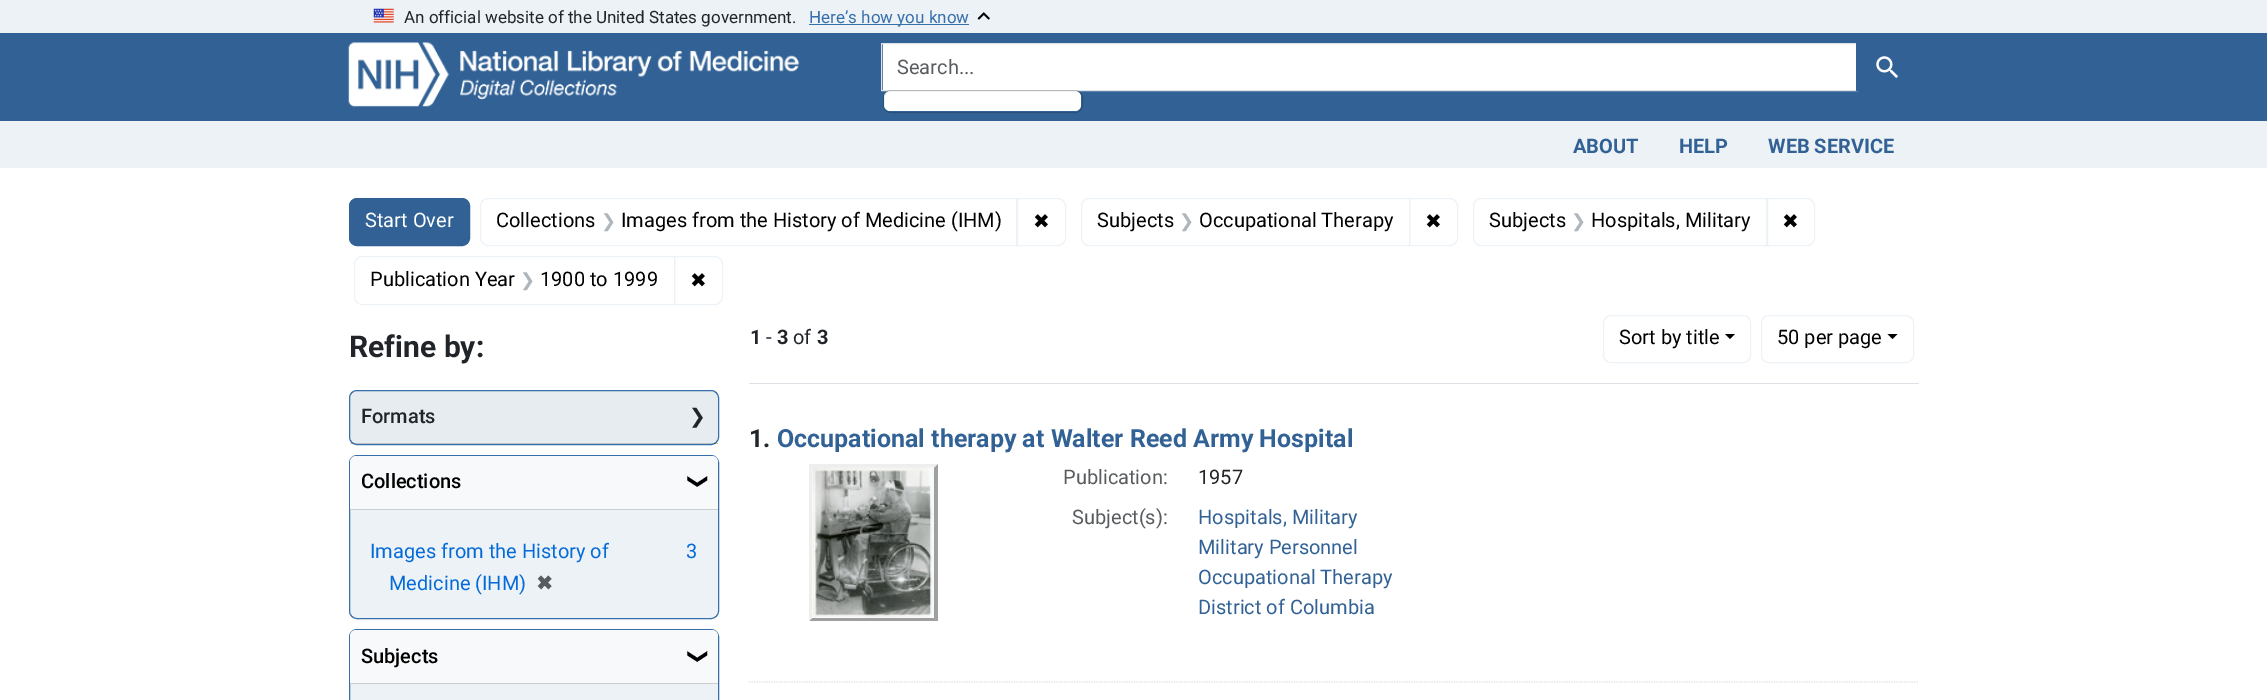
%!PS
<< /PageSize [2267 700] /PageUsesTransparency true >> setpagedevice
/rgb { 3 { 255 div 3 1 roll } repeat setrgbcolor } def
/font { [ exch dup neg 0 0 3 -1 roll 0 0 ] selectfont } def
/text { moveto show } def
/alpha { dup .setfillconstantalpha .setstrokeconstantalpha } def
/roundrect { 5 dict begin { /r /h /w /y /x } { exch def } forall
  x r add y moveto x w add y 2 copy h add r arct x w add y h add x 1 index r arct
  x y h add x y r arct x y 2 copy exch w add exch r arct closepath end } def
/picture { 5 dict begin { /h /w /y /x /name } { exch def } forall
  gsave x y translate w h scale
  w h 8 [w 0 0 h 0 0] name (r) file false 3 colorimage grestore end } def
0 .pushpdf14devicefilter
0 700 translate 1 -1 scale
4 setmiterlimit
255 255 255 rgb
0 0 2267 700 rectfill
237 242 247 rgb
0 0 2267 33 rectfill
(img_01.rgb) 373 8 21 15 picture
55 111 170 rgb
809 24 160 1 rectfill
(img_02.rgb) 977 12 13 8 picture
50 98 149 rgb
0 33 2267 88 rectfill
(img_03.rgb) 348 42 452 65 picture
255 255 255 rgb
883 44 973 46 rectfill
222 226 230 rgb
881.5 43.5 976 47 rectstroke
255 255 255 rgb
884 91 197 20 6 roundrect fill
0.18 alpha
0 0 0 rgb
883.5 90.5 199 22 7.5 roundrect stroke
1 alpha
50 98 149 rgb
1856 43 moveto 55 0 rlineto 4.5 0 8 3.5 8 8 rcurveto 0 32 rlineto 0 4.5 -3.5 8 -8 8 rcurveto -55 0 rlineto closepath fill
(img_04.rgb) 1876 56 22 22 picture
237 242 247 rgb
0 121 2267 47 rectfill
50 98 149 rgb
349.5 198.5 120 47 7.5 roundrect gsave fill grestore
stroke
237 242 247 rgb
488 198.5 moveto 529.5 0 rlineto 0 47 rlineto -529.5 0 rlineto -4 0 -7.5 -3.5 -7.5 -7.5 rcurveto 0 -32 rlineto 0 -4 3.5 -7.5 7.5 -7.5 rcurveto closepath stroke
1016.5 198.5 moveto 41.5 0 rlineto 4 0 7.5 3.5 7.5 7.5 rcurveto 0 32 rlineto 0 4 -3.5 7.5 -7.5 7.5 rcurveto -41.5 0 rlineto closepath stroke
1089 198.5 moveto 320.5 0 rlineto 0 47 rlineto -320.5 0 rlineto -4 0 -7.5 -3.5 -7.5 -7.5 rcurveto 0 -32 rlineto 0 -4 3.5 -7.5 7.5 -7.5 rcurveto closepath stroke
1409.5 198.5 moveto 40.5 0 rlineto 4 0 7.5 3.5 7.5 7.5 rcurveto 0 32 rlineto 0 4 -3.5 7.5 -7.5 7.5 rcurveto -40.5 0 rlineto closepath stroke
1481 198.5 moveto 286.5 0 rlineto 0 47 rlineto -286.5 0 rlineto -4 0 -7.5 -3.5 -7.5 -7.5 rcurveto 0 -32 rlineto 0 -4 3.5 -7.5 7.5 -7.5 rcurveto closepath stroke
1766.5 198.5 moveto 40.5 0 rlineto 4 0 7.5 3.5 7.5 7.5 rcurveto 0 32 rlineto 0 4 -3.5 7.5 -7.5 7.5 rcurveto -40.5 0 rlineto closepath stroke
362 256.5 moveto 312.5 0 rlineto 0 48 rlineto -312.5 0 rlineto -4 0 -7.5 -3.5 -7.5 -7.5 rcurveto 0 -33 rlineto 0 -4 3.5 -7.5 7.5 -7.5 rcurveto closepath stroke
674.5 256.5 moveto 40.5 0 rlineto 4 0 7.5 3.5 7.5 7.5 rcurveto 0 33 rlineto 0 4 -3.5 7.5 -7.5 7.5 rcurveto -40.5 0 rlineto closepath stroke
349.5 390.5 369 54 7.5 roundrect gsave fill grestore
55 111 170 rgb
stroke
0.03 alpha
33 37 41 rgb
350 391 368 53 rectfill
0.18 alpha
0 0 0 rgb
350 443 368 1 rectfill
1 alpha
237 242 247 rgb
349.5 455.5 369 163 7.5 roundrect gsave fill grestore
55 111 170 rgb
stroke
248 249 250 rgb
356 456 moveto 356 0 rlineto 3.5 0 6 2.5 6 6 rcurveto 0 48 rlineto -368 0 rlineto 0 -48 rlineto 0 -3.5 2.5 -6 6 -6 rcurveto closepath fill
204 205 206 rgb
350 509 368 1 rectfill
237 242 247 rgb
349.5 629.5 369 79 7.5 roundrect gsave fill grestore
55 111 170 rgb
stroke
248 249 250 rgb
356 630 moveto 356 0 rlineto 3.5 0 6 2.5 6 6 rcurveto 0 48 rlineto -368 0 rlineto 0 -48 rlineto 0 -3.5 2.5 -6 6 -6 rcurveto closepath fill
204 205 206 rgb
350 683 368 1 rectfill
222 226 230 rgb
749 383 1170 1 rectfill
237 242 247 rgb
1603.5 315.5 147 47 7.5 roundrect stroke
0 0 0 rgb
1725 334 moveto 10 0 rlineto -5 5 rlineto closepath fill
237 242 247 rgb
1761.5 315.5 152 47 7.5 roundrect stroke
0 0 0 rgb
1887.5 334 moveto 10 0 rlineto -5 5 rlineto closepath fill
222 226 230 rgb
1.2 setlinewidth
[1.25 1.25] 0 setdash
749 682 moveto 1170 0 rlineto stroke
238 238 238 rgb
809 464 moveto 129 0 rlineto -4 4 rlineto -122 0 rlineto closepath fill
159 159 159 rgb
938 464 moveto 0 157 rlineto -4 -3 rlineto 0 -150 rlineto closepath fill
938 621 moveto -129 0 rlineto 3 -3 rlineto 122 0 rlineto closepath fill
238 238 238 rgb
809 621 moveto 0 -157 rlineto 3 4 rlineto 0 150 rlineto closepath fill
(img_05.rgb) 812 467 122 151 picture
/Roboto-Regular 17 font
33 37 41 rgb
(An official website of the United States government.) 404 23 text
55 111 170 rgb
(Here’s how you know) 809 23 text
/Roboto-Regular 20 font
89 92 95 rgb
(Search...) 897 74 text
/Roboto-Bold 20 font
50 98 149 rgb
(ABOUT) 1573 153 text
(HELP) 1679 153 text
(WEB SERVICE) 1768 153 text
/Roboto-Regular 20 font
255 255 255 rgb
(Start Over) 365 227 text
0 0 0 rgb
(Collections) 496 227 text
/DejaVuSans-Regular 18 font
173 181 189 rgb
(❯) 601 227 text
/Roboto-Regular 20 font
0 0 0 rgb
(Images from the History of Medicine \(IHM\)) 621 227 text
/DejaVuSans-Regular 20 font
(✖) 1033 228 text
/Roboto-Regular 20 font
(Subjects) 1097 227 text
/DejaVuSans-Regular 18 font
173 181 189 rgb
(❯) 1179 227 text
/Roboto-Regular 20 font
0 0 0 rgb
(Occupational Therapy) 1199 227 text
/DejaVuSans-Regular 20 font
(✖) 1425 228 text
/Roboto-Regular 20 font
(Subjects) 1489 227 text
/DejaVuSans-Regular 18 font
173 181 189 rgb
(❯) 1571 227 text
/Roboto-Regular 20 font
0 0 0 rgb
(Hospitals, Military) 1591 227 text
/DejaVuSans-Regular 20 font
(✖) 1782 228 text
/Roboto-Regular 20 font
(Publication Year) 370 286 text
/DejaVuSans-Regular 18 font
173 181 189 rgb
(❯) 520 286 text
/Roboto-Regular 20 font
0 0 0 rgb
(1900 to 1999) 540 286 text
/DejaVuSans-Regular 20 font
(✖) 690 287 text
/Roboto-Bold 30 font
33 37 41 rgb
(Refine by:) 349 357 text
/Roboto-Medium 20 font
(Formats) 361 423 text
/DejaVuSans-Regular 20 font
(❯) 689 423 text
/Roboto-Medium 20 font
0 0 0 rgb
(Collections) 361 488 text
/DejaVuSans-Regular 20 font
gsave 692 473 translate 90 rotate 0 0 moveto (❯) show grestore
/Roboto-Regular 20 font
5 107 216 rgb
(Images from the History of) 370 558 text
(Medicine \(IHM\)) 389 590 text
/DejaVuSans-Bold 20 font
89 92 95 rgb
(✖) 536 590 text
/Roboto-Regular 20 font
5 107 216 rgb
(3) 686 558 text
/Roboto-Medium 20 font
0 0 0 rgb
(Subjects) 361 663 text
/DejaVuSans-Regular 20 font
gsave 692 648 translate 90 rotate 0 0 moveto (❯) show grestore
/Roboto-Bold 20 font
33 37 41 rgb
(1) 750 344 text
/Roboto-Regular 20 font
(-) 766 344 text
/Roboto-Bold 20 font
(3) 777 344 text
/Roboto-Regular 20 font
(of) 793 344 text
/Roboto-Bold 20 font
(3) 817 344 text
/Roboto-Regular 20 font
0 0 0 rgb
(Sort by title) 1619 344 text
(50 per page) 1777 344 text
/Roboto-Bold 25 font
33 37 41 rgb
(1.) 749 447 text
50 98 149 rgb
(Occupational therapy at Walter Reed Army Hospital) 777 447 text
/Roboto-Regular 20 font
89 92 95 rgb
(Publication:) 1063 484 text
33 37 41 rgb
(1957) 1198 484 text
89 92 95 rgb
(Subject\(s\):) 1072 524 text
50 98 149 rgb
(Hospitals, Military) 1198 524 text
(Military Personnel) 1198 554 text
(Occupational Therapy) 1198 584 text
(District of Columbia) 1198 614 text
.poppdf14devicefilter showpage
